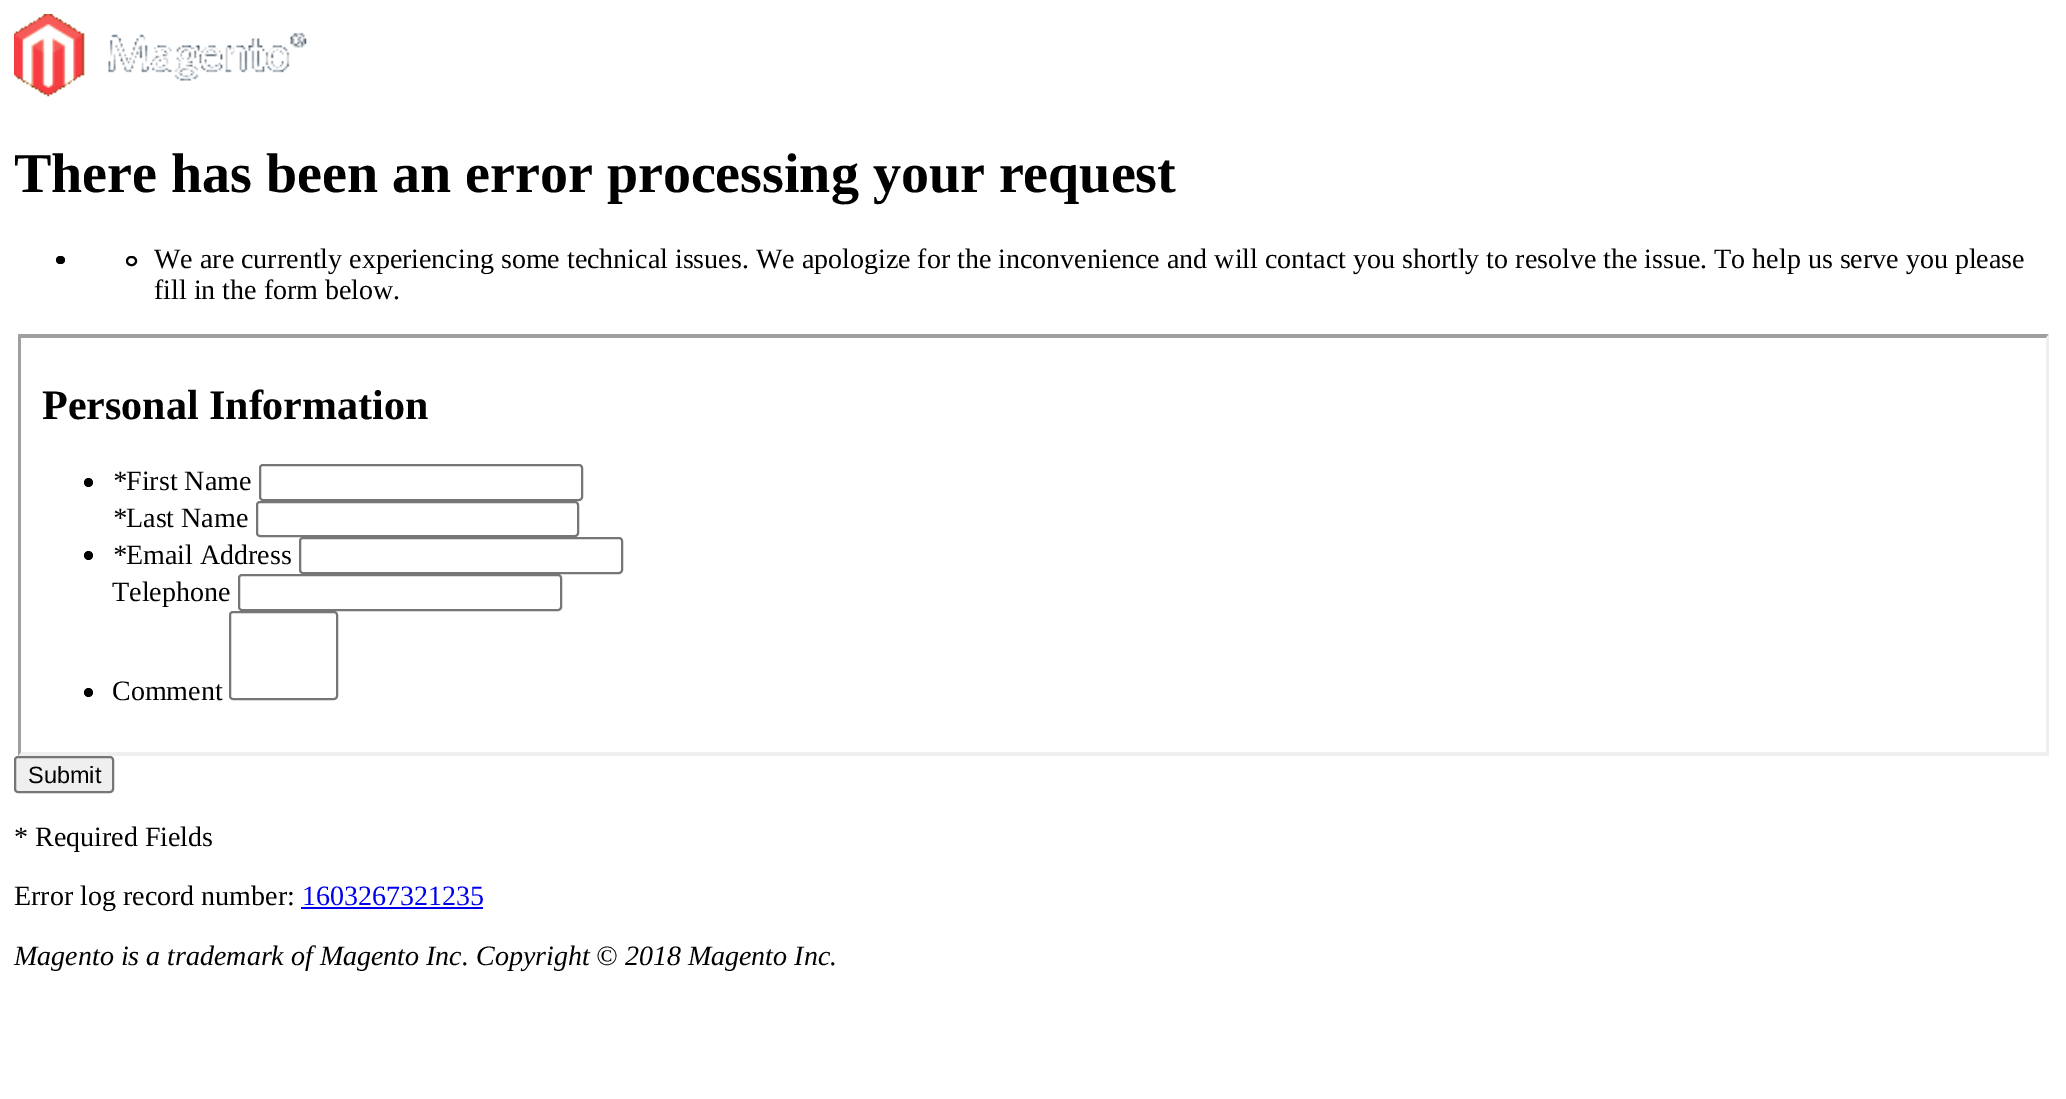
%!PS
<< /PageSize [2066 1099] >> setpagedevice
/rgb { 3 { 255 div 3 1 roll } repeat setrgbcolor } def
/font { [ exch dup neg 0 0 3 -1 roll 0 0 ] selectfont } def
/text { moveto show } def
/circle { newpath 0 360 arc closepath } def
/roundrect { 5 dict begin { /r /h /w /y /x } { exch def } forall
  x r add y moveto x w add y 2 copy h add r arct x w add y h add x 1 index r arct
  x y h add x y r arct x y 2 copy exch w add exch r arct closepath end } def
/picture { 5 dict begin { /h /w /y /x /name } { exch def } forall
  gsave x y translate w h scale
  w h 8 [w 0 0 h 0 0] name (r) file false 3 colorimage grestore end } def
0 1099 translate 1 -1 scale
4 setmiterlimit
255 255 255 rgb
0 0 2066 1099 rectfill
(img_01.rgb) 14 14 293 83 picture
0 0 0 rgb
56 256 9 8 4 roundrect fill
2 setlinewidth
127 257 9 8 4 roundrect stroke
159 159 159 rgb
18 334 moveto 2031 0 rlineto -3 4 rlineto -2025 0 rlineto closepath fill
239 239 239 rgb
2049 334 moveto 0 422 rlineto -3 -4 rlineto 0 -414 rlineto closepath fill
2049 756 moveto -2031 0 rlineto 3 -4 rlineto 2025 0 rlineto closepath fill
159 159 159 rgb
18 756 moveto 0 -422 rlineto 3 4 rlineto 0 414 rlineto closepath fill
0 0 0 rgb
88.5 482.5 4.5 circle fill
118 118 118 rgb
260 465 322 35 3 roundrect stroke
257 502 321 34 3 roundrect stroke
0 0 0 rgb
88.5 555.5 4.5 circle fill
118 118 118 rgb
300 538 322 35 3 roundrect stroke
239 575 322 35 3 roundrect stroke
0 0 0 rgb
88.5 692.5 4.5 circle fill
118 118 118 rgb
230 612 107 87 3 roundrect stroke
239 239 239 rgb
15 757 98 35 3 roundrect gsave fill grestore
118 118 118 rgb
stroke
0 0 238 rgb
301 907 182 2 rectfill
/LiberationSerif-Bold 56 font
0 0 0 rgb
(There has been an error processing your request) 14 192 text
/LiberationSerif-Regular 28 font
(We are currently experiencing some technical issues. We apologize for the inconvenience and will contact you shortly to resolve the issue. To help us serve you please) 154 268 text
(fill in the form below.) 154 299 text
/LiberationSerif-Bold 42 font
(Personal Information) 42 419 text
/LiberationSerif-Italic 28 font
(*) 112 490 text
/LiberationSerif-Regular 28 font
(First Name) 126 490 text
/LiberationSerif-Italic 28 font
(*) 112 527 text
/LiberationSerif-Regular 28 font
(Last Name) 126 527 text
/LiberationSerif-Italic 28 font
(*) 112 564 text
/LiberationSerif-Regular 28 font
(Email Address) 126 564 text
(Telephone) 112 601 text
(Comment) 112 700 text
/LiberationSans-Regular 23.5 font
(Submit) 28 783 text
/LiberationSerif-Regular 28 font
(* Required Fields) 14 846 text
(Error log record number:) 14 905 text
0 0 238 rgb
(1603267321235) 302 905 text
/LiberationSerif-Italic 28 font
0 0 0 rgb
(Magento is a trademark of Magento Inc. Copyright © 2018 Magento Inc.) 14 965 text
showpage
